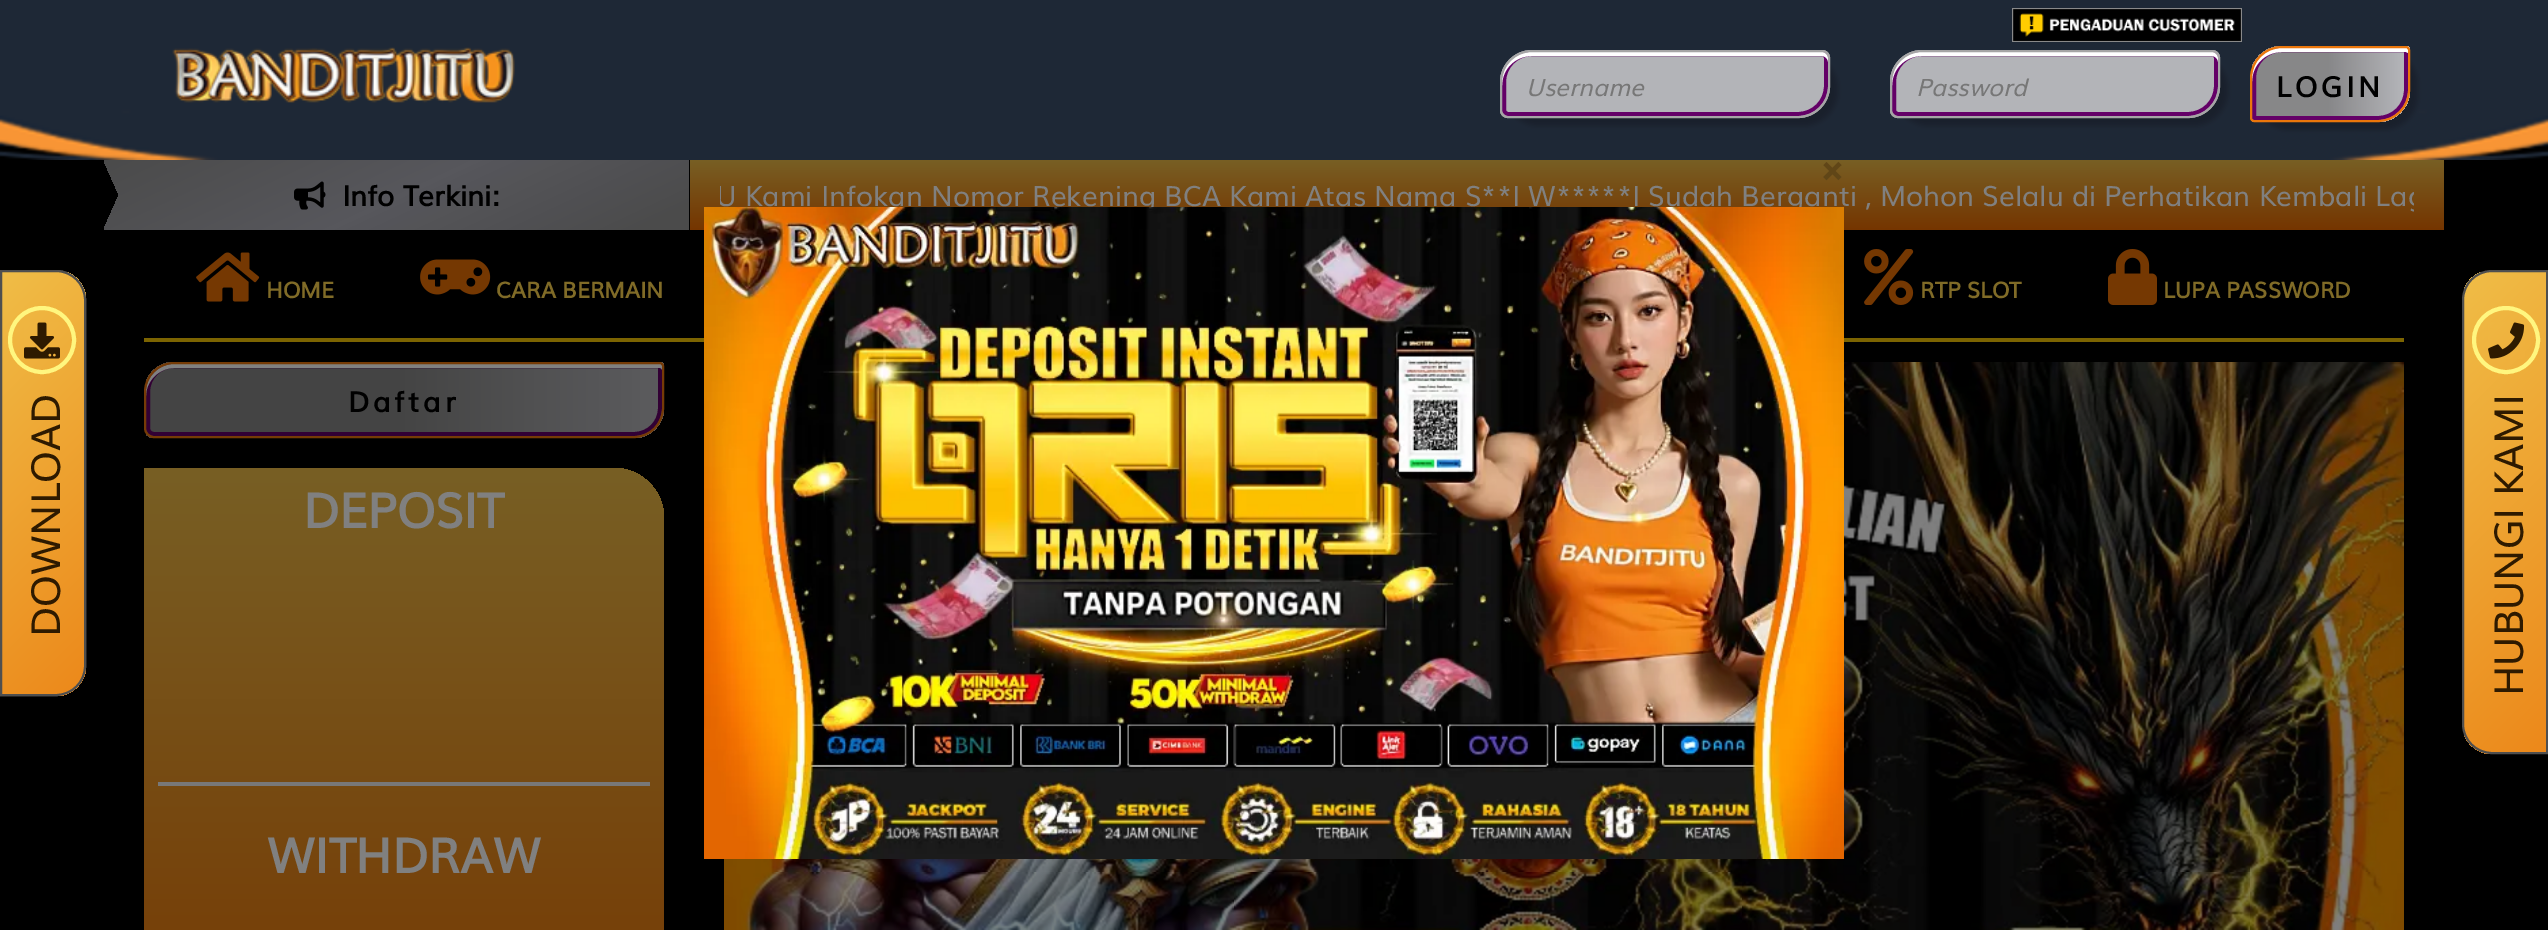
%!PS
<< /PageSize [2548 930] /PageUsesTransparency true >> setpagedevice
/rgb { 3 { 255 div 3 1 roll } repeat setrgbcolor } def
/font { [ exch dup neg 0 0 3 -1 roll 0 0 ] selectfont } def
/text { moveto show } def
/alpha { dup .setfillconstantalpha .setstrokeconstantalpha } def
/circle { newpath 0 360 arc closepath } def
/roundrect { 5 dict begin { /r /h /w /y /x } { exch def } forall
  x r add y moveto x w add y 2 copy h add r arct x w add y h add x 1 index r arct
  x y h add x y r arct x y 2 copy exch w add exch r arct closepath end } def
/shadow { 12 dict begin { /a /b /q /h /w /y /x } { exch def } forall gsave /was 0 def
  9 -2 -9 { dup b mul 4 div /e exch def 1 sub .425 mul 2.718 exch exp 1 add a .99 .min exch div /now exch def
    1 1 now sub 1 was sub div sub alpha /was now def
    w h .min e 2 mul add 0 gt { x e sub y e sub w e 2 mul add h e 2 mul add
      q e add b .6 mul add w h .min 2 div e add .min 0 .max roundrect fill } if } for grestore end } def
/picture { 5 dict begin { /h /w /y /x /name } { exch def } forall
  gsave x y translate w h scale
  w h 8 [w 0 0 h 0 0] name (r) file false 3 colorimage grestore end } def
0 .pushpdf14devicefilter
0 930 translate 1 -1 scale
4 setmiterlimit
0 0 0 rgb
0 0 2548 930 rectfill
(img_02.rgb) 0 0 2548 160 picture
(img_01.rgb) 2012 8 230 34 picture
(img_03.rgb) 172 47 343 56 picture
1504 54 334 72 34 3 0.2 shadow
179 180 184 rgb
1532 50 moveto 290 0 rlineto 4.5 0 8 3.5 8 8 rcurveto 0 28 rlineto 0 17.5 -14.5 32 -32 32 rcurveto -290 0 rlineto -4.5 0 -8 -3.5 -8 -8 rcurveto 0 -28 rlineto 0 -17.5 14.5 -32 32 -32 rcurveto closepath fill
100 0 103 rgb
4 setlinewidth
1532 54 moveto 290 0 rlineto 2 0 4 2 4 4 rcurveto 0 28 rlineto 0 15.5 -12.5 28 -28 28 rcurveto -290 0 rlineto -2 0 -4 -2 -4 -4 rcurveto 0 -28 rlineto 0 -15.5 12.5 -28 28 -28 rcurveto closepath stroke
255 255 255 rgb
1532 56 moveto 290 0 rlineto 3 0 6 3 6 6 rcurveto 0 -4 rlineto 0 -3 -3 -6 -6 -6 rcurveto -290 0 rlineto -17 0 -30 13 -30 30 rcurveto 0 4 rlineto 0 -17 13 -30 30 -30 rcurveto closepath fill
165 165 165 rgb
2 setlinewidth
1532 51 moveto 290 0 rlineto 4 0 7 3 7 7 rcurveto 0 28 rlineto 0 17 -14 31 -31 31 rcurveto -290 0 rlineto -4 0 -7 -3 -7 -7 rcurveto 0 -28 rlineto 0 -17 14 -31 31 -31 rcurveto closepath stroke
0 0 0 rgb
1894 54 334 72 34 3 0.2 shadow
179 180 184 rgb
1922 50 moveto 290 0 rlineto 4.5 0 8 3.5 8 8 rcurveto 0 28 rlineto 0 17.5 -14.5 32 -32 32 rcurveto -290 0 rlineto -4.5 0 -8 -3.5 -8 -8 rcurveto 0 -28 rlineto 0 -17.5 14.5 -32 32 -32 rcurveto closepath fill
100 0 103 rgb
4 setlinewidth
1922 54 moveto 290 0 rlineto 2 0 4 2 4 4 rcurveto 0 28 rlineto 0 15.5 -12.5 28 -28 28 rcurveto -290 0 rlineto -2 0 -4 -2 -4 -4 rcurveto 0 -28 rlineto 0 -15.5 12.5 -28 28 -28 rcurveto closepath stroke
255 255 255 rgb
1922 56 moveto 290 0 rlineto 3 0 6 3 6 6 rcurveto 0 -4 rlineto 0 -3 -3 -6 -6 -6 rcurveto -290 0 rlineto -17 0 -30 13 -30 30 rcurveto 0 4 rlineto 0 -17 13 -30 30 -30 rcurveto closepath fill
165 165 165 rgb
2 setlinewidth
1922 51 moveto 290 0 rlineto 4 0 7 3 7 7 rcurveto 0 28 rlineto 0 17 -14 31 -31 31 rcurveto -290 0 rlineto -4 0 -7 -3 -7 -7 rcurveto 0 -28 rlineto 0 -17 14 -31 31 -31 rcurveto closepath stroke
0 0 0 rgb
2254 50 164 80 34 3 0.2 shadow
gsave
2282 46 moveto 124 0 rlineto 2 0 4 2 4 4 rcurveto 0 40 rlineto 0 17.5 -14.5 32 -32 32 rcurveto -124 0 rlineto -2 0 -4 -2 -4 -4 rcurveto 0 -40 rlineto 0 -17.5 14.5 -32 32 -32 rcurveto closepath clip newpath
gsave 2252 46 moveto 154 0 rlineto 2 0 4 2 4 4 rcurveto 0 40 rlineto 0 17.5 -14.5 32 -32 32 rcurveto -126 0 rlineto closepath clip newpath
<< /ShadingType 2 /ColorSpace /DeviceRGB /Coords [2252 192 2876 192] /Extend [true true] /Function << /FunctionType 3 /Domain [0 1] /Functions [<< /FunctionType 2 /Domain [0 1] /C0 [0.529 0.529 0.533] /C1 [0.529 0.529 0.533] /N 1 >> << /FunctionType 2 /Domain [0 1] /C0 [0.529 0.529 0.533] /C1 [0.702 0.706 0.722] /N 1 >> << /FunctionType 2 /Domain [0 1] /C0 [0.702 0.706 0.722] /C1 [0.702 0.706 0.722] /N 1 >> << /FunctionType 2 /Domain [0 1] /C0 [0.702 0.706 0.722] /C1 [0.529 0.529 0.533] /N 1 >> << /FunctionType 2 /Domain [0 1] /C0 [0.529 0.529 0.533] /C1 [0.702 0.706 0.722] /N 1 >> << /FunctionType 2 /Domain [0 1] /C0 [0.702 0.706 0.722] /C1 [0.702 0.706 0.722] /N 1 >> << /FunctionType 2 /Domain [0 1] /C0 [0.702 0.706 0.722] /C1 [0.529 0.529 0.533] /N 1 >>] /Bounds [0.12 0.24 0.38 0.57 0.74 0.88] /Encode [0 1 0 1 0 1 0 1 0 1 0 1 0 1] >> >> shfill grestore
grestore
100 0 103 rgb
4 setlinewidth
2282 50 moveto 124 0 rlineto 0 40 rlineto 0 15.5 -12.5 28 -28 28 rcurveto -124 0 rlineto 0 -40 rlineto 0 -15.5 12.5 -28 28 -28 rcurveto closepath stroke
255 255 255 rgb
2282 52 moveto 124 0 rlineto 2 1 rlineto 0 1 rlineto 0 -4 rlineto 0 -1 -1 -2 -2 -2 rcurveto -124 0 rlineto -17 0 -30 13 -30 30 rcurveto 0 4 rlineto 0 -17 13 -30 30 -30 rcurveto closepath fill
235 118 11 rgb
2 setlinewidth
2282 47 moveto 124 0 rlineto 1.5 0 3 1.5 3 3 rcurveto 0 40 rlineto 0 17 -14 31 -31 31 rcurveto -124 0 rlineto -1.5 0 -3 -1.5 -3 -3 rcurveto 0 -40 rlineto 0 -17 14 -31 31 -31 rcurveto closepath stroke
(img_05.rgb) 724 362 1680 568 picture
gsave
174 362 moveto 486 0 rlineto 2 0 4 2 4 4 rcurveto 0 42 rlineto 0 16.5 -13.5 30 -30 30 rcurveto -480 0 rlineto -5.5 0 -10 -4.5 -10 -10 rcurveto 0 -36 rlineto 0 -16.5 13.5 -30 30 -30 rcurveto closepath clip newpath
gsave 146 362 moveto 514 0 rlineto 2 0 4 2 4 4 rcurveto 0 42 rlineto 0 16.5 -13.5 30 -30 30 rcurveto -488 0 rlineto closepath clip newpath
<< /ShadingType 2 /ColorSpace /DeviceRGB /Coords [146 508 2210 508] /Extend [true true] /Function << /FunctionType 3 /Domain [0 1] /Functions [<< /FunctionType 2 /Domain [0 1] /C0 [0.267 0.267 0.267] /C1 [0.267 0.267 0.267] /N 1 >> << /FunctionType 2 /Domain [0 1] /C0 [0.267 0.267 0.267] /C1 [0.353 0.353 0.361] /N 1 >> << /FunctionType 2 /Domain [0 1] /C0 [0.353 0.353 0.361] /C1 [0.353 0.353 0.361] /N 1 >> << /FunctionType 2 /Domain [0 1] /C0 [0.353 0.353 0.361] /C1 [0.267 0.267 0.267] /N 1 >> << /FunctionType 2 /Domain [0 1] /C0 [0.267 0.267 0.267] /C1 [0.353 0.353 0.361] /N 1 >> << /FunctionType 2 /Domain [0 1] /C0 [0.353 0.353 0.361] /C1 [0.353 0.353 0.361] /N 1 >> << /FunctionType 2 /Domain [0 1] /C0 [0.353 0.353 0.361] /C1 [0.267 0.267 0.267] /N 1 >>] /Bounds [0.12 0.24 0.38 0.57 0.74 0.88] /Encode [0 1 0 1 0 1 0 1 0 1 0 1 0 1] >> >> shfill grestore
grestore
50 0 52 rgb
4 setlinewidth
174 366 moveto 486 0 rlineto 0 42 rlineto 0 14.5 -11.5 26 -26 26 rcurveto -480 0 rlineto -3.5 0 -6 -2.5 -6 -6 rcurveto 0 -36 rlineto 0 -14.5 11.5 -26 26 -26 rcurveto closepath stroke
128 128 128 rgb
174 368 moveto 486 0 rlineto 1 0 2 1 2 2 rcurveto 0 -4 rlineto 0 -1 -1 -2 -2 -2 rcurveto -486 0 rlineto -15 0 -28 13 -28 28 rcurveto 0 4 rlineto 0 -15 13 -28 28 -28 rcurveto closepath fill
118 59 6 rgb
2 setlinewidth
174 363 moveto 486 0 rlineto 1.5 0 3 1.5 3 3 rcurveto 0 42 rlineto 0 16 -13 29 -29 29 rcurveto -480 0 rlineto -5 0 -9 -4 -9 -9 rcurveto 0 -36 rlineto 0 -16 13 -29 29 -29 rcurveto closepath stroke
gsave 144 468 moveto 470 0 rlineto 27.5 0 50 22.5 50 50 rcurveto 0 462 rlineto -470 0 rlineto -27.5 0 -50 -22.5 -50 -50 rcurveto closepath clip newpath
<< /ShadingType 2 /ColorSpace /DeviceRGB /Coords [404 468 404 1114] /Extend [true true] /Function << /FunctionType 2 /Domain [0 1] /C0 [0.471 0.373 0.141] /C1 [0.459 0.208 0] /N 1 >> >> shfill grestore
120 120 120 rgb
158 782 492 4 rectfill
124 100 1 rgb
144 338 2260 4 rectfill
(img_06.rgb) 196 252 64 50 picture
(img_07.rgb) 420 259 71 36 picture
(img_08.rgb) 1864 249 50 56 picture
(img_09.rgb) 2108 249 49 56 picture
gsave 106 160 moveto -2 1 rlineto 15 34 rlineto -15 34 rlineto 2 1 rlineto 583 0 rlineto 0 -70 rlineto -1 0 rlineto closepath clip newpath
<< /ShadingType 2 /ColorSpace /DeviceRGB /Coords [331 54 463 336] /Extend [true true] /Function << /FunctionType 3 /Domain [0 1] /Functions [<< /FunctionType 2 /Domain [0 1] /C0 [0.294 0.294 0.294] /C1 [0.341 0.341 0.361] /N 1 >> << /FunctionType 2 /Domain [0 1] /C0 [0.341 0.341 0.361] /C1 [0.294 0.294 0.294] /N 1 >> << /FunctionType 2 /Domain [0 1] /C0 [0.294 0.294 0.294] /C1 [0.294 0.294 0.294] /N 1 >>] /Bounds [0.5 0.95] /Encode [0 1 0 1 0 1] >> >> shfill grestore
(img_10.rgb) 294 181 32 29 picture
gsave 690 160 moveto 1754 0 rlineto 0 70 rlineto -1754 0 rlineto closepath clip newpath
<< /ShadingType 2 /ColorSpace /DeviceRGB /Coords [1567 160 1567 230] /Extend [true true] /Function << /FunctionType 2 /Domain [0 1] /C0 [0.471 0.373 0.141] /C1 [0.459 0.208 0] /N 1 >> >> shfill grestore
79 79 79 rgb
1 271 moveto 55 0 rlineto 16 0 29 13 29 29 rcurveto 0 366 rlineto 0 16 -13 29 -29 29 rcurveto -55 0 rlineto closepath stroke
gsave
0 270 moveto 56 0 rlineto 16.5 0 30 13.5 30 30 rcurveto 0 366 rlineto 0 16.5 -13.5 30 -30 30 rcurveto -56 0 rlineto closepath clip newpath
gsave 2 272 moveto 84 0 rlineto 0 394 rlineto 0 16.5 -13.5 30 -30 30 rcurveto -54 0 rlineto closepath clip newpath
<< /ShadingType 2 /ColorSpace /DeviceRGB /Coords [-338 612 670 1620] /Extend [true true] /Function << /FunctionType 3 /Domain [0 1] /Functions [<< /FunctionType 2 /Domain [0 1] /C0 [0.941 0.741 0.278] /C1 [0.918 0.412 0] /N 1 >> << /FunctionType 2 /Domain [0 1] /C0 [0.918 0.412 0] /C1 [0.882 0.808 0.459] /N 1 >> << /FunctionType 2 /Domain [0 1] /C0 [0.882 0.808 0.459] /C1 [1 0.984 0.788] /N 1 >> << /FunctionType 2 /Domain [0 1] /C0 [1 0.984 0.788] /C1 [0.925 0.725 0.259] /N 1 >> << /FunctionType 2 /Domain [0 1] /C0 [0.925 0.725 0.259] /C1 [0.925 0.725 0.259] /N 1 >>] /Bounds [0.4 0.5 0.51 0.75] /Encode [0 1 0 1 0 1 0 1 0 1] >> >> shfill grestore
grestore
1 271 moveto 55 0 rlineto 16 0 29 13 29 29 rcurveto 0 366 rlineto 0 16 -13 29 -29 29 rcurveto -55 0 rlineto closepath stroke
255 246 127 rgb
4 setlinewidth
42 340 32 circle stroke
(img_11.rgb) 24 322 36 37 picture
gsave
2492 270 moveto 56 0 rlineto 0 484 rlineto -56 0 rlineto -16.5 0 -30 -13.5 -30 -30 rcurveto 0 -424 rlineto 0 -16.5 13.5 -30 30 -30 rcurveto closepath clip newpath
gsave 2464 272 moveto 82 0 rlineto 0 482 rlineto -82 0 rlineto closepath clip newpath
<< /ShadingType 2 /ColorSpace /DeviceRGB /Coords [2066 670 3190 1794] /Extend [true true] /Function << /FunctionType 3 /Domain [0 1] /Functions [<< /FunctionType 2 /Domain [0 1] /C0 [0.941 0.741 0.278] /C1 [0.918 0.412 0] /N 1 >> << /FunctionType 2 /Domain [0 1] /C0 [0.918 0.412 0] /C1 [0.918 0.412 0] /N 1 >> << /FunctionType 2 /Domain [0 1] /C0 [0.918 0.412 0] /C1 [1 0.984 0.788] /N 1 >> << /FunctionType 2 /Domain [0 1] /C0 [1 0.984 0.788] /C1 [0.925 0.725 0.259] /N 1 >> << /FunctionType 2 /Domain [0 1] /C0 [0.925 0.725 0.259] /C1 [0.925 0.725 0.259] /N 1 >>] /Bounds [0.4 0.5 0.51 0.75] /Encode [0 1 0 1 0 1 0 1 0 1] >> >> shfill grestore
grestore
79 79 79 rgb
2 setlinewidth
2492 271 moveto 55 0 rlineto 0 482 rlineto -55 0 rlineto -16 0 -29 -13 -29 -29 rcurveto 0 -424 rlineto 0 -16 13 -29 29 -29 rcurveto closepath stroke
255 246 127 rgb
4 setlinewidth
2506 340 32 circle stroke
(img_12.rgb) 2488 322 37 37 picture
/Muli-Italic 24 font
119 119 119 rgb
(Username) 1526 96 text
(Password) 1916 96 text
/Muli-Bold 28 font
0 0 0 rgb
2276 97 moveto 4 0 (LOGIN) ashow
/Muli-Bold 42 font
96 70 23 rgb
(×) 1819 183 text
/Muli-Bold 28 font
0 0 0 rgb
348 412 moveto 4 0 (Daftar) ashow
/Muli-Bold 48 font
128 128 128 rgb
(DEPOSIT) 303 528 text
(WITHDRAW) 267 873 text
/Muli-Bold 22 font
128 107 39 rgb
(HOME) 266 298 text
(CARA BERMAIN) 496 298 text
(RTP SLOT) 1920 298 text
(LUPA PASSWORD) 2163 298 text
/Muli-Bold 28 font
0 0 0 rgb
(Info Terkini:) 342 206 text
gsave
720 160 1694 70 rectclip
/Muli-Regular 28 font
128 128 128 rgb
(U Kami Infokan Nomor Rekening BCA Kami Atas Nama S**I W*****I Sudah Berganti , Mohon Selalu di Perhatikan Kembali Lag) 716 206 text
grestore
(img_04.rgb) 704 207 1140 652 picture
/Muli-Regular 40 font
46 26 0 rgb
gsave 60 637 translate -90 rotate 0 0 moveto (DOWNLOAD) show grestore
gsave 2523 696 translate -90 rotate 0 0 moveto (HUBUNGI KAMI) show grestore
.poppdf14devicefilter showpage
